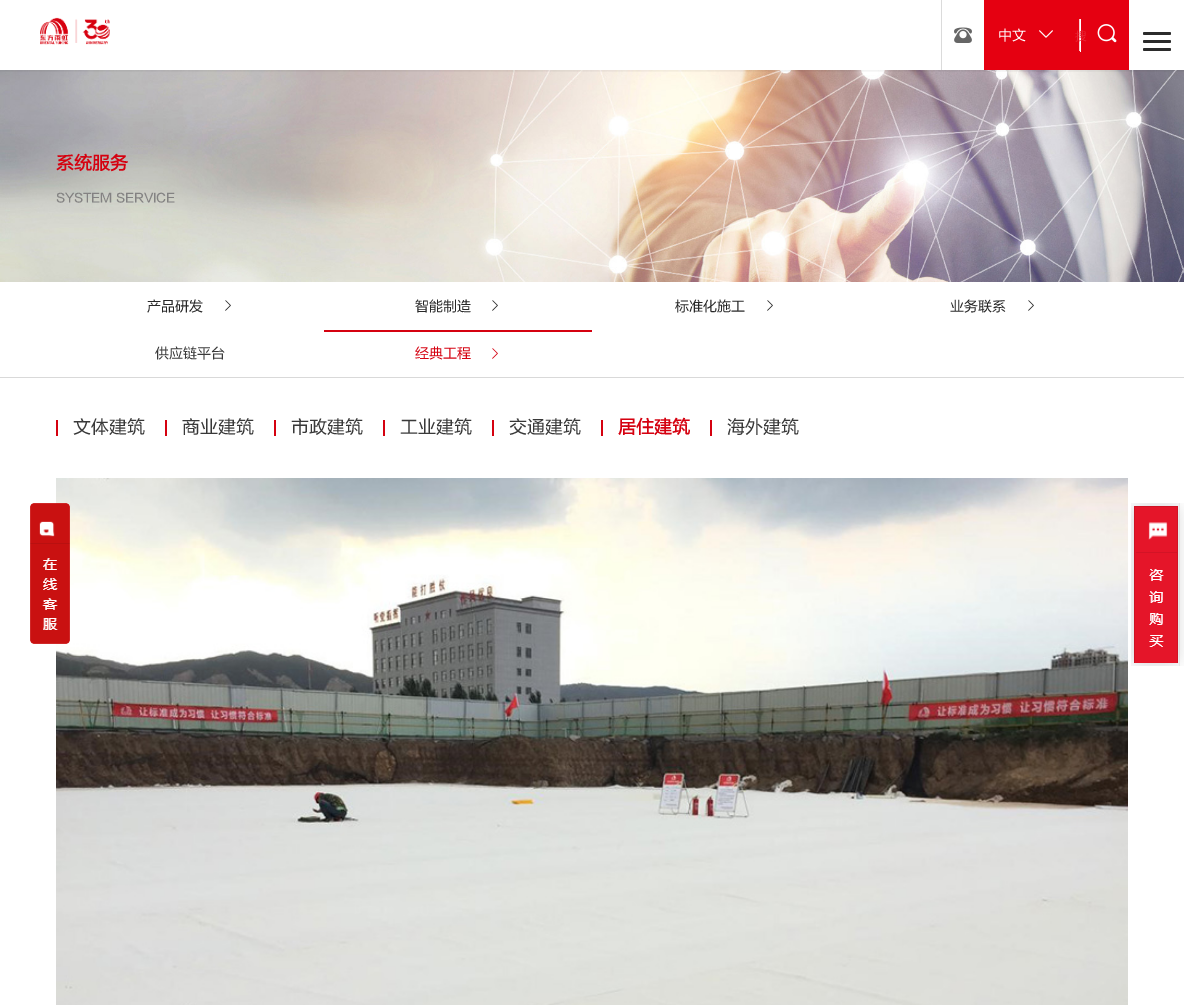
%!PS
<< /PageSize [1184 1005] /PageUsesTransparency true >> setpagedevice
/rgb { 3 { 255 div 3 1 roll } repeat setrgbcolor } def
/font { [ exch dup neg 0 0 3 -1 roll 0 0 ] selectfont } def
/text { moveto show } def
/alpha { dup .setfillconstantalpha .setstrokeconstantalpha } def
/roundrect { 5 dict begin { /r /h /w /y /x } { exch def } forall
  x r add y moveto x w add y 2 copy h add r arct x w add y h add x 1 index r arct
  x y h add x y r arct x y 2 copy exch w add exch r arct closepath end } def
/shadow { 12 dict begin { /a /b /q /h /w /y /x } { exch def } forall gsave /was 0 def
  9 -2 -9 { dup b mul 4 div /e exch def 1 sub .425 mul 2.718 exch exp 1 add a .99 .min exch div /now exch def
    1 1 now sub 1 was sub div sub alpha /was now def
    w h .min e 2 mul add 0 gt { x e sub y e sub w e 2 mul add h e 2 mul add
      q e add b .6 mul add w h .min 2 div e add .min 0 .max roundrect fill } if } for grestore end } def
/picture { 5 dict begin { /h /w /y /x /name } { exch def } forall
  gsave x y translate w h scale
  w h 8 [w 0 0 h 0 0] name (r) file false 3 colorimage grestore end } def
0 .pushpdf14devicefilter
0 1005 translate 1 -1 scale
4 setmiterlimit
255 255 255 rgb
0 0 1184 1005 rectfill
(img_05.rgb) 0 70 1184 212 picture
gsave
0 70 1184 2 rectclip
0 0 0 rgb
0 0 1184 70 0 2.5 0.1 shadow
grestore
(img_01.rgb) 40 17 70 28 picture
219 219 219 rgb
941 0 1 70 rectfill
(img_02.rgb) 954 27 18 16 picture
229 0 17 rgb
984 0 145 70 rectfill
250 204 207 rgb
1079 19 1 32 rectfill
(img_03.rgb) 1039 30 14 8 picture
255 255 255 rgb
1080 19 1 33 rectfill
(img_04.rgb) 1097 24 20 19 picture
43 43 43 rgb
1143 32 28 3 1.5 roundrect fill
1143 40 28 3 1.5 roundrect fill
1143 48 28 3 1.5 roundrect fill
217 217 217 rgb
0 377 1184 1 rectfill
(img_06.rgb) 225 300 6 11 picture
(img_06.rgb) 492 300 6 11 picture
(img_06.rgb) 767 300 6 11 picture
(img_06.rgb) 1028 300 6 11 picture
213 1 16 rgb
324 330 268 2 rectfill
(img_07.rgb) 492 348 6 11 picture
56 420 2 16 rectfill
165 420 2 16 rectfill
274 420 2 16 rectfill
383 420 2 16 rectfill
492 420 2 16 rectfill
601 420 2 16 rectfill
710 420 2 16 rectfill
(img_08.rgb) 56 478 1072 527 picture
(img_09.rgb) 30 503 40 141 picture
(img_10.rgb) 1131 503 53 163 picture
/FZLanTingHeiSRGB-Regular 14 font
255 255 255 rgb
(中文) 998 40 text
/WenQuanYiZenHei-Medium 12 font
233 40 54 rgb
(搜) 1075 40 text
/FZLanTingHeiSRGB-Bold 18 font
213 1 16 rgb
(系统服务) 56 169 text
/FZLanTingHeiSRGB-Bold 12 font
131 130 130 rgb
(SYSTEM SERVICE) 56 202 text
/FZLanTingHeiSRGB-Regular 14 font
40 40 40 rgb
(产品研发) 147 311 text
(智能制造) 415 311 text
(标准化施工) 675 311 text
(业务联系) 950 311 text
57 57 57 rgb
(供应链平台) 155 358 text
213 1 16 rgb
(经典工程) 415 358 text
/FZLanTingHeiSRGB-Regular 18 font
57 57 57 rgb
(文体建筑) 73 433 text
(商业建筑) 182 433 text
(市政建筑) 291 433 text
(工业建筑) 400 433 text
(交通建筑) 509 433 text
/FZLanTingHeiSRGB-Bold 18 font
213 1 16 rgb
(居住建筑) 618 433 text
/FZLanTingHeiSRGB-Regular 18 font
57 57 57 rgb
(海外建筑) 727 433 text
.poppdf14devicefilter showpage
